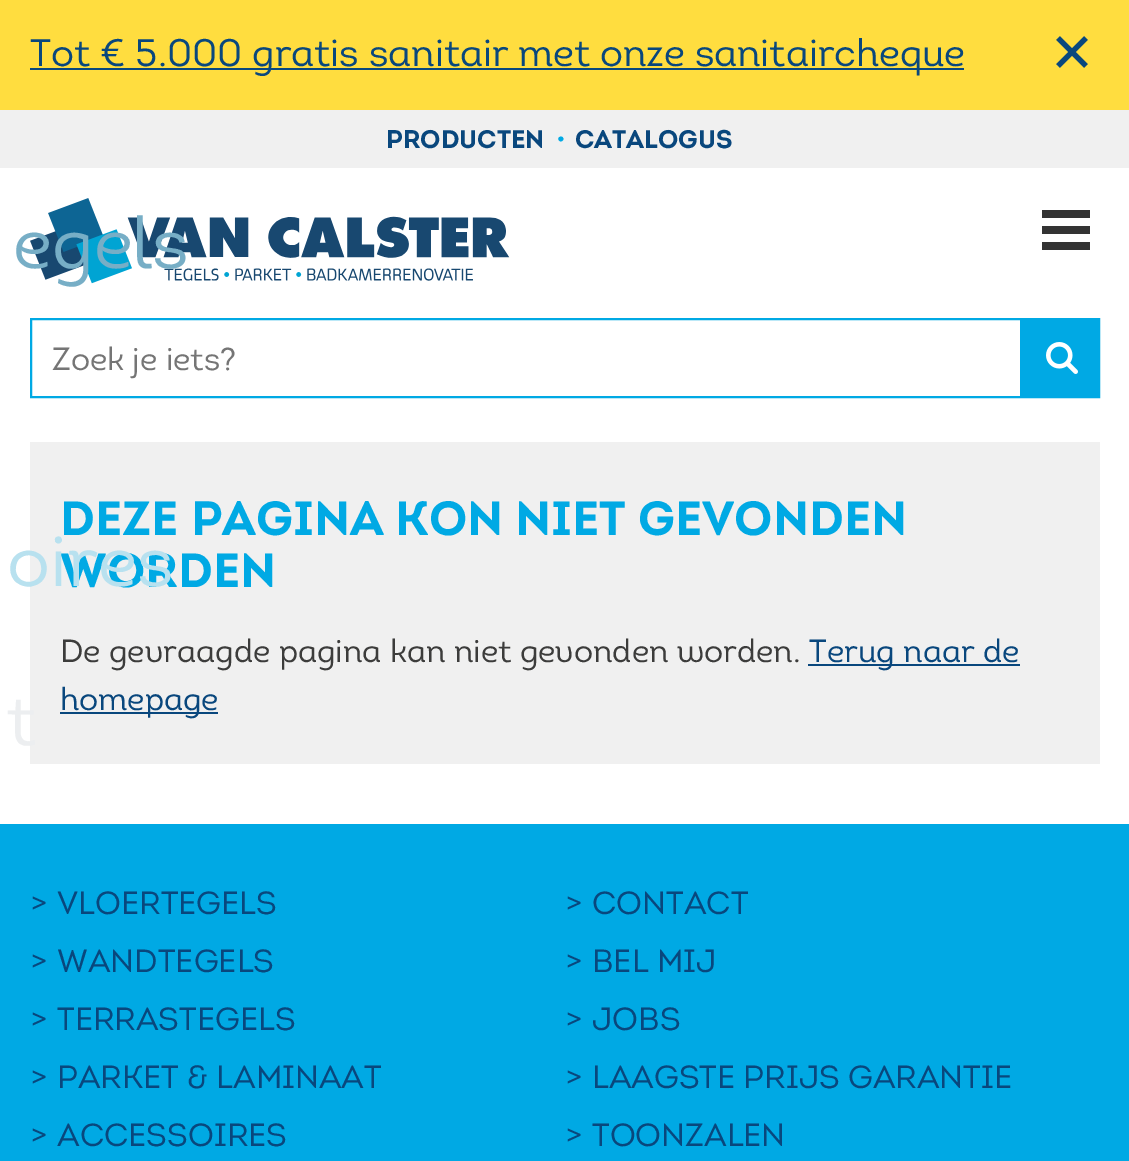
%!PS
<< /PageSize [1129 1161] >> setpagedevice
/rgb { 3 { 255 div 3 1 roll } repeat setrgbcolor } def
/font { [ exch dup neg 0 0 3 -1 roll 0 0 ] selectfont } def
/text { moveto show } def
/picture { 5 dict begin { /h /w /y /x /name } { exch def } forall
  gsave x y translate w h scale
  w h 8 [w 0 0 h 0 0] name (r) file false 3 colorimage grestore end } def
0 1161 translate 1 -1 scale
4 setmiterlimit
255 255 255 rgb
0 0 1129 1161 rectfill
255 221 63 rgb
0 0 1129 110 rectfill
9 71 125 rgb
30 68 934 2 rectfill
(img_01.rgb) 1056 36 32 32 picture
240 240 240 rgb
0 110 1129 58 rectfill
(img_02.rgb) 30 198 480 86 picture
51 51 51 rgb
1042 226 48 8 rectfill
1042 210 48 8 rectfill
1042 242 48 8 rectfill
0 169 228 rgb
2 setlinewidth
31 319 1068 78 rectstroke
1020 320 78 76 rectfill
(img_03.rgb) 1046 342 32 32 picture
240 240 240 rgb
30 442 1070 322 rectfill
9 71 125 rgb
808 664 212 2 rectfill
60 712 158 2 rectfill
0 169 228 rgb
0 824 1129 337 rectfill
/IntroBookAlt-Regular 38.4 font
9 71 125 rgb
(Tot € 5.000 gratis sanitair met onze sanitaircheque) 30 66 text
/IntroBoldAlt-Bold 25.5 font
(PRODUCTEN) 386 148 text
/IntroBookAlt-Regular 25.5 font
0 169 228 rgb
(•) 556 148 text
/IntroBoldAlt-Bold 25.5 font
9 71 125 rgb
(CATALOGUS) 575 148 text
/IntroBookAlt-Regular 72 font
119 174 198 rgb
(egels) 13 268 text
236 238 240 rgb
(t) 6 745 text
/IntroBookAlt-Regular 32 font
117 117 117 rgb
(Zoek je iets?) 52 370 text
/IntroBoldAlt-Bold 48 font
0 169 228 rgb
(DEZE PAGINA KON NIET GEVONDEN) 60 535 text
(WORDEN) 60 587 text
/IntroBookAlt-Regular 72 font
184 225 239 rgb
(oires) 7 586 text
/IntroBookAlt-Regular 32 font
60 60 59 rgb
(De gevraagde pagina kan niet gevonden worden.) 60 662 text
9 71 125 rgb
(Terug naar de) 809 662 text
(homepage) 60 710 text
(>) 30 914 text
(VLOERTEGELS) 57 914 text
(>) 30 972 text
(WANDTEGELS) 57 972 text
(>) 30 1030 text
(TERRASTEGELS) 57 1030 text
(>) 30 1088 text
(PARKET & LAMINAAT) 57 1088 text
(>) 30 1146 text
(ACCESSOIRES) 57 1146 text
(>) 565 914 text
(CONTACT) 592 914 text
(>) 565 972 text
(BEL MIJ) 592 972 text
(>) 565 1030 text
(JOBS) 592 1030 text
(>) 565 1088 text
(LAAGSTE PRIJS GARANTIE) 592 1088 text
(>) 565 1146 text
(TOONZALEN) 592 1146 text
showpage
